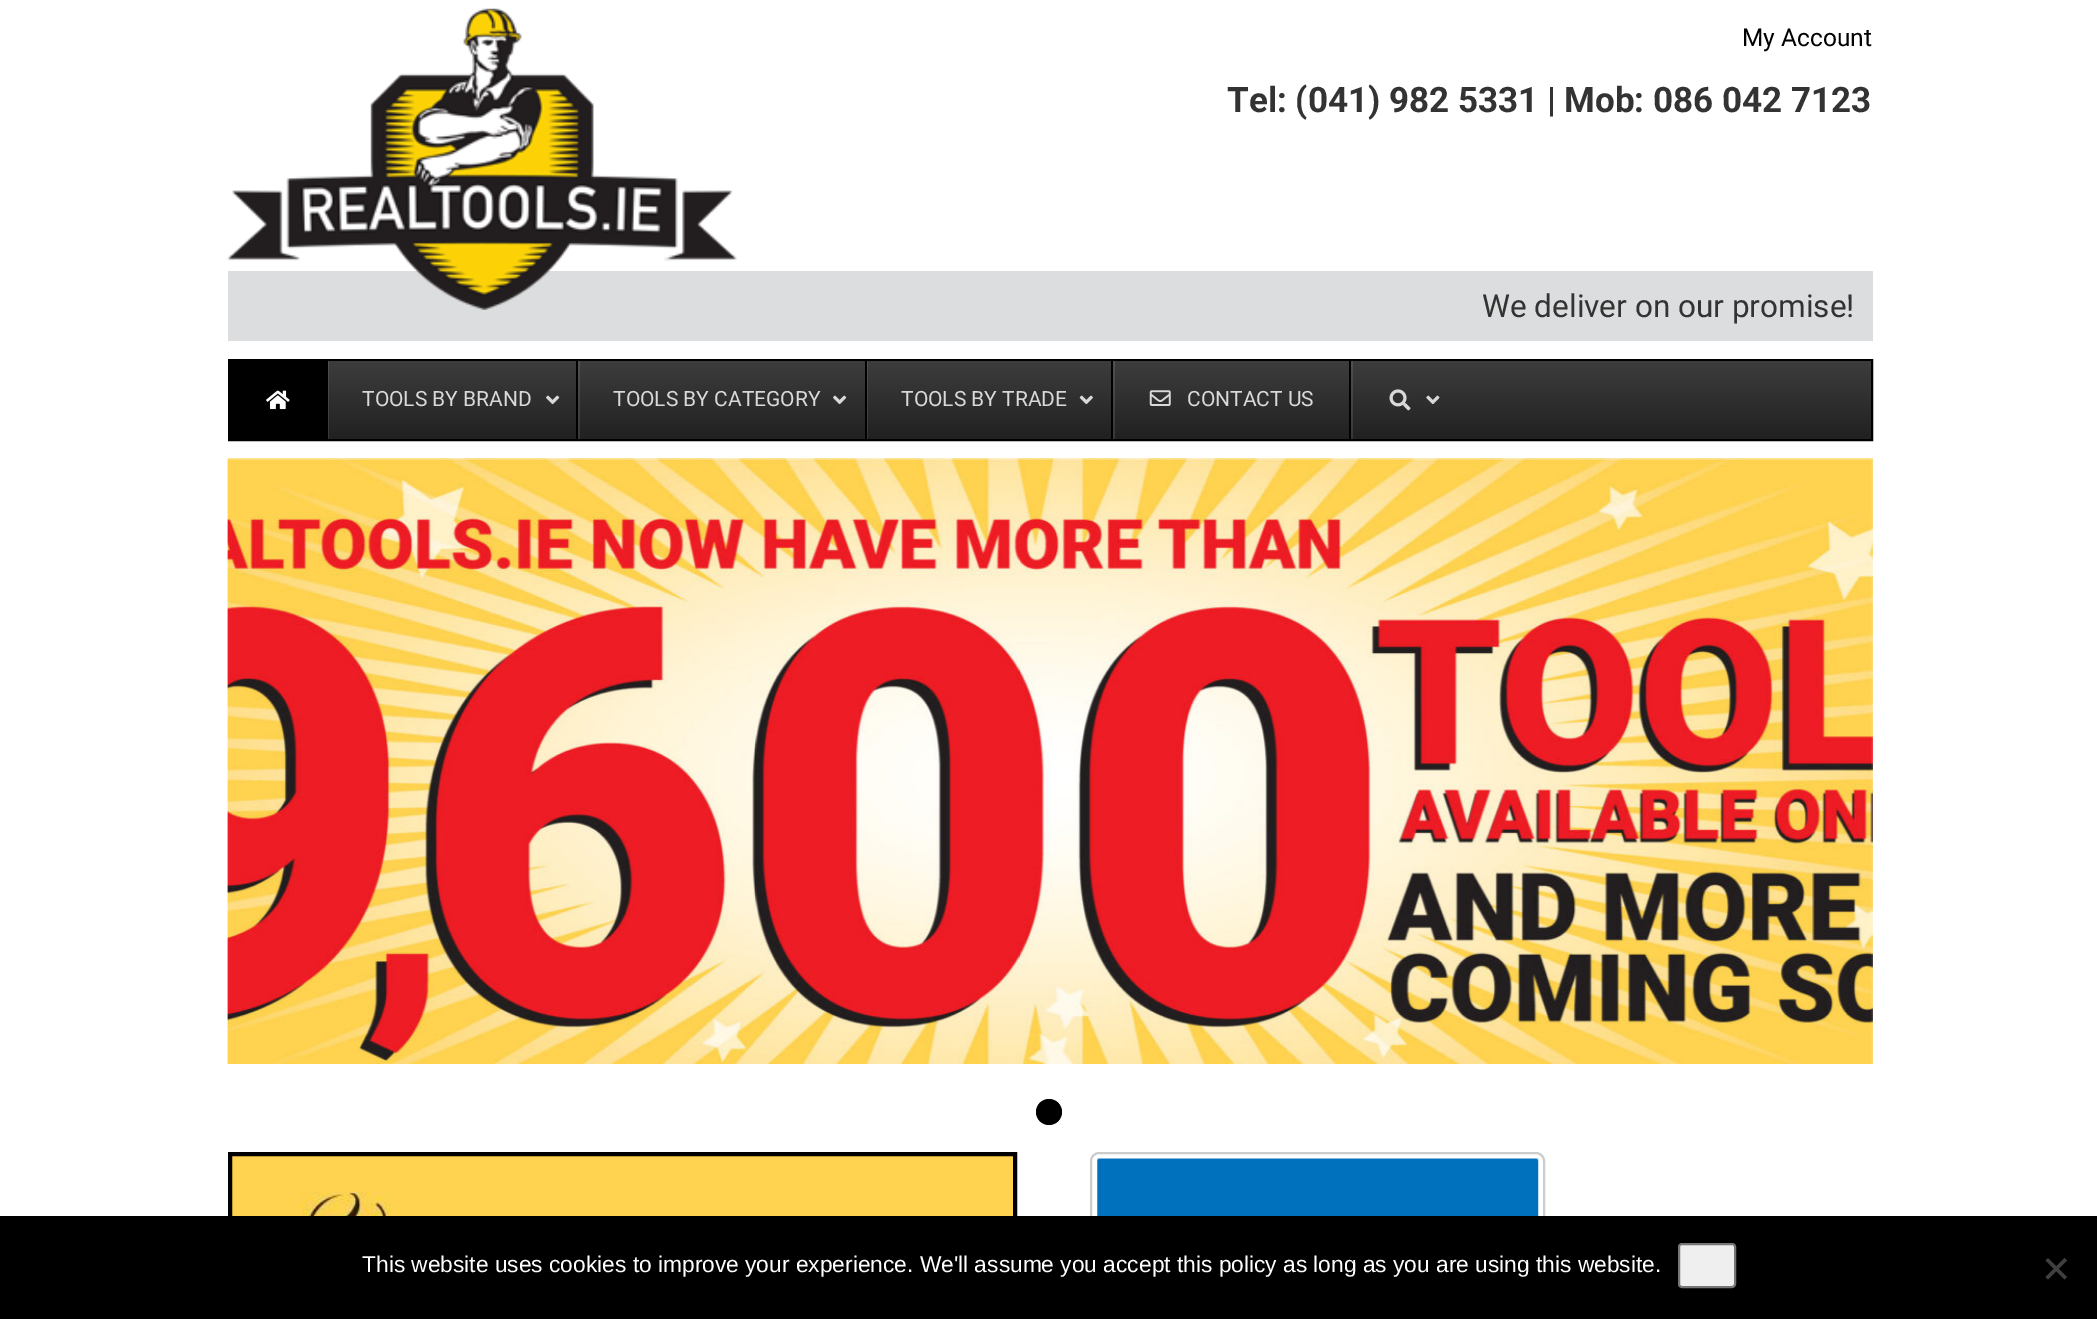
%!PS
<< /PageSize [2097 1319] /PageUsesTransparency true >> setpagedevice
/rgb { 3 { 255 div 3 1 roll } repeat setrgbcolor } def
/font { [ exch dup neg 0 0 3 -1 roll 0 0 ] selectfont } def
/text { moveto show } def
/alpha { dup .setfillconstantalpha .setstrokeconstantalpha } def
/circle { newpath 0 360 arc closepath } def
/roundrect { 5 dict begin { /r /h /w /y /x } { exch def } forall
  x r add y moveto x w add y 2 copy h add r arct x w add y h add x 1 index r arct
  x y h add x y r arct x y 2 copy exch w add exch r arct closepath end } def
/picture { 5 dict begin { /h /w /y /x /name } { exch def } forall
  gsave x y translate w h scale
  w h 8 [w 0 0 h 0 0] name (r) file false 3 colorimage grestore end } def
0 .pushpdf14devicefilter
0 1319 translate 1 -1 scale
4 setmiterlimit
255 255 255 rgb
0 0 2097 1319 rectfill
220 221 222 rgb
228 271 1645 70 rectfill
(img_01.rgb) 227 8 510 302 picture
gsave 328 361 moveto 1543 0 rlineto 0 78 rlineto -1543 0 rlineto closepath clip newpath
<< /ShadingType 2 /ColorSpace /DeviceRGB /Coords [1050 360 1050 439] /Extend [true true] /Function << /FunctionType 2 /Domain [0 1] /C0 [0.239 0.239 0.239] /C1 [0.129 0.129 0.129] /N 1 >> >> shfill grestore
gsave
229 361 1642 78 rectclip
0.1 alpha
255 255 255 rgb
56 187 moveto 1988 0 rlineto 0 425 rlineto -1988 0 rlineto closepath 231 362 moveto 1641 0 rlineto 0 79 rlineto -1641 0 rlineto closepath eofill
grestore
0 0 0 rgb
2 setlinewidth
229 360 1643 80 rectstroke
230 361 98 78 rectfill
(img_02.rgb) 266 390 24 20 picture
0.1 alpha
255 255 255 rgb
328 361 1 78 rectfill
1 alpha
(img_03.rgb) 546 395 14 10 picture
0.1 alpha
578 361 2 78 rectfill
1 alpha
0 0 0 rgb
576 361 2 78 rectfill
(img_03.rgb) 833 395 14 10 picture
0.1 alpha
255 255 255 rgb
867 361 1 78 rectfill
1 alpha
0 0 0 rgb
865 361 2 78 rectfill
(img_04.rgb) 1079 395 14 10 picture
0.1 alpha
255 255 255 rgb
1113 361 2 78 rectfill
1 alpha
0 0 0 rgb
1111 361 2 78 rectfill
(img_05.rgb) 1149 390 22 16 picture
0.1 alpha
255 255 255 rgb
1351 361 2 78 rectfill
1 alpha
0 0 0 rgb
1349 361 2 78 rectfill
(img_06.rgb) 1389 389 22 22 picture
(img_07.rgb) 1426 395 14 10 picture
(img_08.rgb) 227 458 1646 606 picture
1049 1112 13 circle fill
255 210 79 rgb
232 1156 781 60 rectfill
0 0 0 rgb
4 setlinewidth
230 1154 785 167 rectstroke
(img_09.rgb) 257 1191 155 25 picture
204 204 204 rgb
2 setlinewidth
1091 1153 453 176 8 roundrect stroke
(img_10.rgb) 1097 1158 442 58 picture
0 0 0 rgb
0 1216 2097 103 rectfill
239 239 239 rgb
1679 1244 56 43 3 roundrect gsave fill grestore
118 118 118 rgb
stroke
64 64 64 rgb
2064.5 1258 moveto 2.5 2.5 rlineto -19 19 rlineto -2.5 -2.5 rlineto closepath fill
2045.5 1260.5 moveto 2.5 -2.5 rlineto 19 19 rlineto -2.5 2.5 rlineto closepath fill
/Roboto-Regular 24.5 font
0 0 0 rgb
(My Account) 1742 46 text
/Roboto-Bold 35 font
51 51 51 rgb
(Tel: \(041\) 982 5331 | Mob: 086 042 7123) 1227 112 text
/Roboto-Regular 31.5 font
(We deliver on our promise!) 1482 317 text
/Roboto-Regular 21 font
217 217 217 rgb
(TOOLS BY BRAND) 362 406 text
(TOOLS BY CATEGORY) 613 406 text
(TOOLS BY TRADE) 901 406 text
(CONTACT US) 1187 406 text
/LiberationSans-Regular 22.75 font
255 255 255 rgb
(This website uses cookies to improve your experience. We'll assume you accept this policy as long as you are using this website.) 362 1272 text
.poppdf14devicefilter showpage
